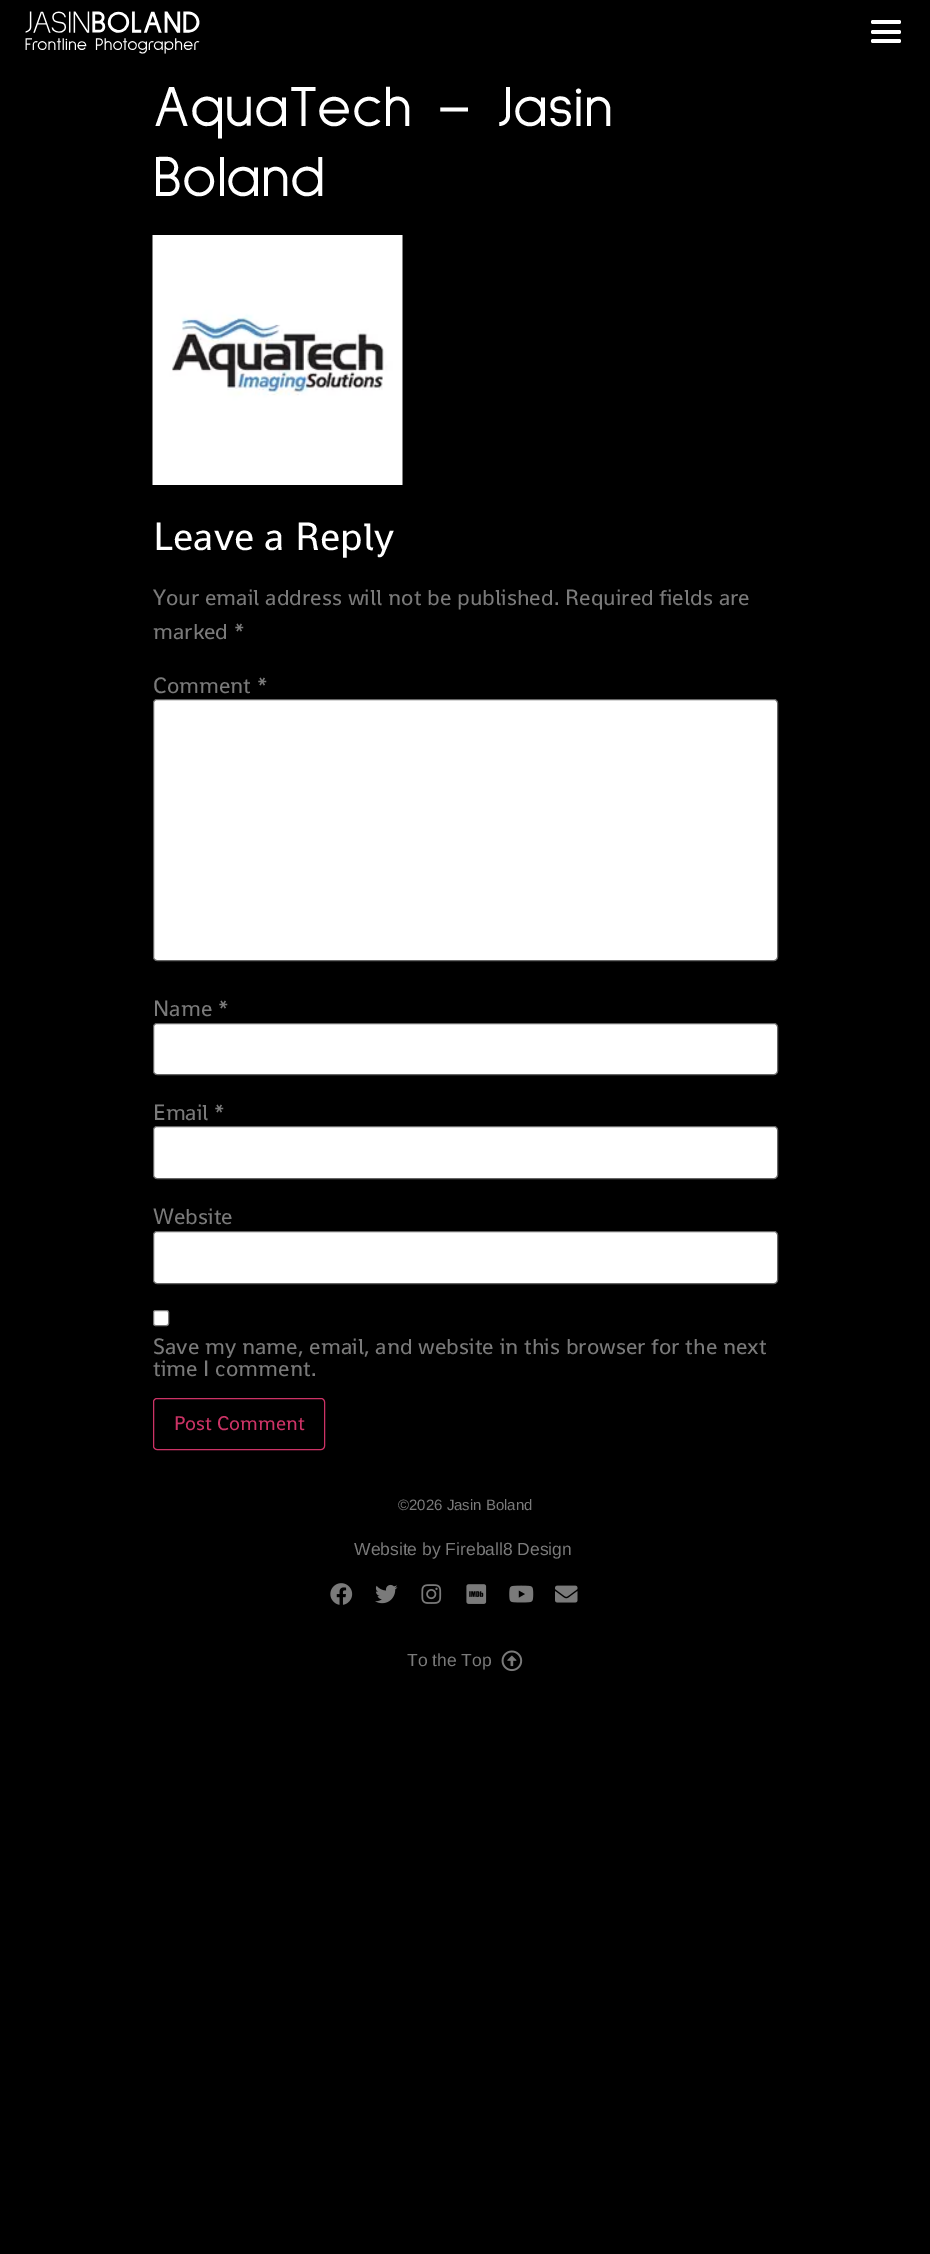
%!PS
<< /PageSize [930 2254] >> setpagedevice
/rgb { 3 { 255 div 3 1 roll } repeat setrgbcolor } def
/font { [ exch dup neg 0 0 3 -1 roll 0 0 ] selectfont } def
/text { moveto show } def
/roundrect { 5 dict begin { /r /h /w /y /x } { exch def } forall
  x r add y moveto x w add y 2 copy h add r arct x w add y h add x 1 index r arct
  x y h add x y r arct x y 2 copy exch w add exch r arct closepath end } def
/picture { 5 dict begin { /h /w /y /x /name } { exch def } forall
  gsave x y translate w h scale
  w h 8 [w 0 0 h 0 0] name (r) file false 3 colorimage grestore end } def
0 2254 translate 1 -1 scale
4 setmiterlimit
0 0 0 rgb
0 0 930 2254 rectfill
(img_01.rgb) 25 11 175 43 picture
255 255 255 rgb
871 30 30 4 2 roundrect fill
871 20 30 4 2 roundrect fill
871 39 30 4 2 roundrect fill
(img_02.rgb) 152 235 251 250 picture
153.5 699.5 624 261 3.5 roundrect gsave fill grestore
102 102 102 rgb
stroke
255 255 255 rgb
153.5 1023.5 624 51 3.5 roundrect gsave fill grestore
102 102 102 rgb
stroke
255 255 255 rgb
153.5 1126.5 624 52 3.5 roundrect gsave fill grestore
102 102 102 rgb
stroke
255 255 255 rgb
153.5 1231.5 624 52 3.5 roundrect gsave fill grestore
102 102 102 rgb
stroke
255 255 255 rgb
153.5 1310.5 15 15 2 roundrect gsave fill grestore
118 118 118 rgb
stroke
204 51 102 rgb
153.5 1398.5 171 51 3.5 roundrect stroke
(img_03.rgb) 330 1583 23 22 picture
(img_04.rgb) 375 1584 23 20 picture
(img_05.rgb) 421 1584 21 20 picture
(img_06.rgb) 466 1584 21 20 picture
(img_07.rgb) 509 1585 25 18 picture
(img_08.rgb) 555 1585 23 18 picture
(img_09.rgb) 501 1650 22 22 picture
/SulphurPoint-Regular 58.75 font
255 255 255 rgb
(AquaTech – Jasin) 153 126 text
(Boland) 153 196 text
/Shanti-Regular 40 font
(Leave a Reply) 153 550 text
/Shanti-Regular 22.5 font
122 122 122 rgb
(Your email address will not be published. Required fields are) 153 605 text
(marked *) 153 639 text
(Comment *) 153 693 text
(Name *) 153 1016 text
(Email *) 153 1120 text
(Website) 153 1224 text
(Save my name, email, and website in this browser for the next) 153 1354 text
(time I comment.) 153 1376 text
/Shanti-Regular 20 font
204 51 102 rgb
(Post Comment) 174 1430 text
/LiberationSans-Regular 15 font
122 122 122 rgb
(©2026 Jasin Boland) 398 1510 text
/LiberationSans-Regular 17.5 font
(Website by Fireball8 Design) 354 1555 text
(To the Top) 407 1666 text
showpage
